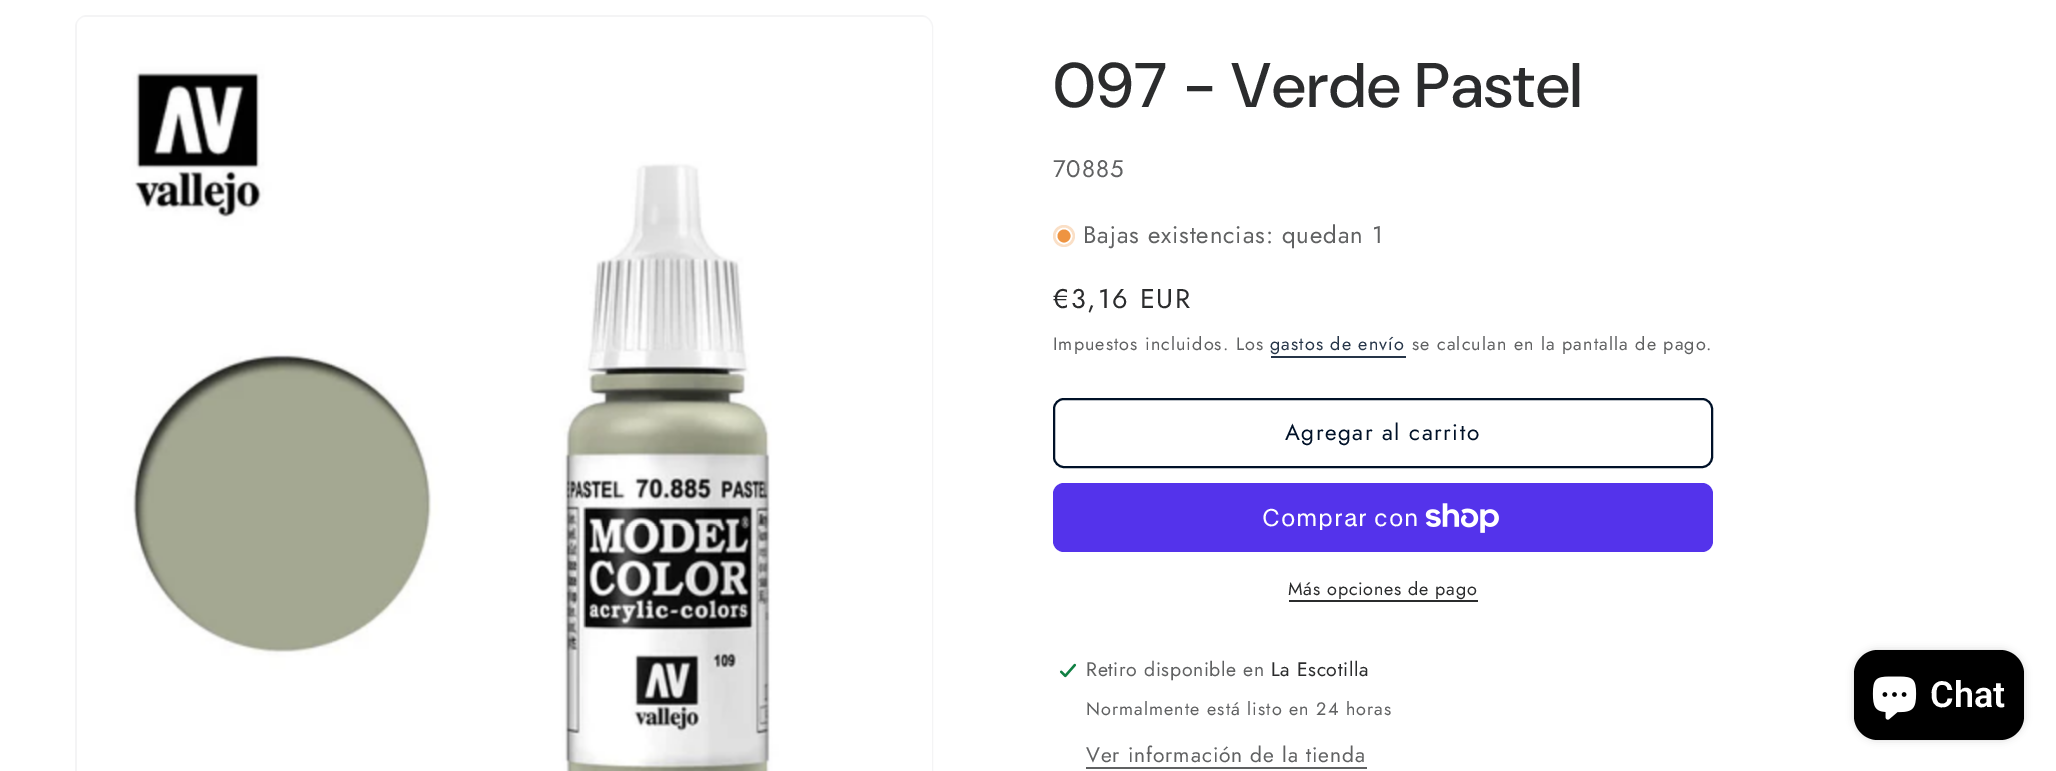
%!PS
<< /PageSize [2056 771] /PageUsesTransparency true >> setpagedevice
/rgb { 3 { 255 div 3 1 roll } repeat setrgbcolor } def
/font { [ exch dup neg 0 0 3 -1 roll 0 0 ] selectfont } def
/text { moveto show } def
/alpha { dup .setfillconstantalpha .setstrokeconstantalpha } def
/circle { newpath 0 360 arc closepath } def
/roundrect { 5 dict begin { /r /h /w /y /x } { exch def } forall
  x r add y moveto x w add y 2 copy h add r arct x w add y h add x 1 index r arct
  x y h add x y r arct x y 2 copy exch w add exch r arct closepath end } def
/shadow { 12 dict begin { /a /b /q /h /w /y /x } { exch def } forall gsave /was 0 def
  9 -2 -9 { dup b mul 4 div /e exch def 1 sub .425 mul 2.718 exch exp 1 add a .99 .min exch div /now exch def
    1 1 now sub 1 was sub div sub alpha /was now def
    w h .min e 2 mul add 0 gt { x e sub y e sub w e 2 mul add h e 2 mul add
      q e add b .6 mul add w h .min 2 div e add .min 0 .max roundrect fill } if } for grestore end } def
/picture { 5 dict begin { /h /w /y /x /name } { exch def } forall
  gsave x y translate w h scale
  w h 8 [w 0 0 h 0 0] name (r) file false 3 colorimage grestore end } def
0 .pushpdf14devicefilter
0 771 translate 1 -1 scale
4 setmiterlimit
255 255 255 rgb
0 0 2056 771 rectfill
244 244 245 rgb
2 setlinewidth
76 16 856 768 11 roundrect stroke
(img_01.rgb) 77 17 855 754 picture
250 223 198 rgb
1064 236 11 circle fill
238 148 65 rgb
1064 236 7.5 circle gsave fill grestore
255 255 255 rgb
1.5 setlinewidth
stroke
38 53 72 rgb
1271 356 135 2 rectfill
0 17 40 rgb
2 setlinewidth
1054 399 658 68 10 roundrect stroke
84 51 235 rgb
1053 483 660 69 11 roundrect fill
(img_02.rgb) 1425 503 74 30 picture
43 44 45 rgb
1289 600 189 2 rectfill
(img_03.rgb) 1059 663 18 15 picture
96 97 98 rgb
1086 767 281 2 rectfill
0 0 0 rgb
1854 650 170 90 24 4 0.15 shadow
1854 650 170 90 24 roundrect fill
(img_04.rgb) 1872 676 45 44 picture
/DMSans-Medium 63 font
43 44 45 rgb
1053 107 moveto 1 0 (097 - Verde Pastel) ashow
/Jost-Regular 24 font
96 97 98 rgb
1053 177 moveto 0.9 0 (70885) ashow
1083 243 moveto 0.9 0 (Bajas existencias: quedan 1) ashow
/Jost-Regular 27 font
43 44 45 rgb
1053 308 moveto 2 0 (€3,16 EUR) ashow
/Jost-Regular 18 font
96 97 98 rgb
1053 350 moveto 1.05 0 (Impuestos incluidos. Los) ashow
38 53 72 rgb
1270 350 moveto 1.05 0 (gastos de envío) ashow
96 97 98 rgb
1412 350 moveto 1.05 0 (se calculan en la pantalla de pago.) ashow
/Jost-Regular 22.5 font
0 17 40 rgb
1285 440 moveto 1.5 0 (Agregar al carrito) ashow
/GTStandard-Regular 24 font
255 255 255 rgb
1262 526 moveto 0.9 0 (Comprar con) ashow
/Jost-Regular 18 font
43 44 45 rgb
1288 595 moveto 0.75 0 (Más opciones de pago) ashow
/Jost-Regular 19.5 font
96 97 98 rgb
1086 676 moveto 0.6 0 (Retiro disponible en) ashow
43 44 45 rgb
1271 676 moveto 0.6 0 (La Escotilla) ashow
/Jost-Regular 18 font
96 97 98 rgb
1086 715 moveto 1.05 0 (Normalmente está listo en 24 horas) ashow
/Jost-Regular 21 font
1086 762 moveto 0.9 0 (Ver información de la tienda) ashow
/Roboto-SemiBold 36 font
255 255 255 rgb
(Chat) 1930 707 text
.poppdf14devicefilter showpage
